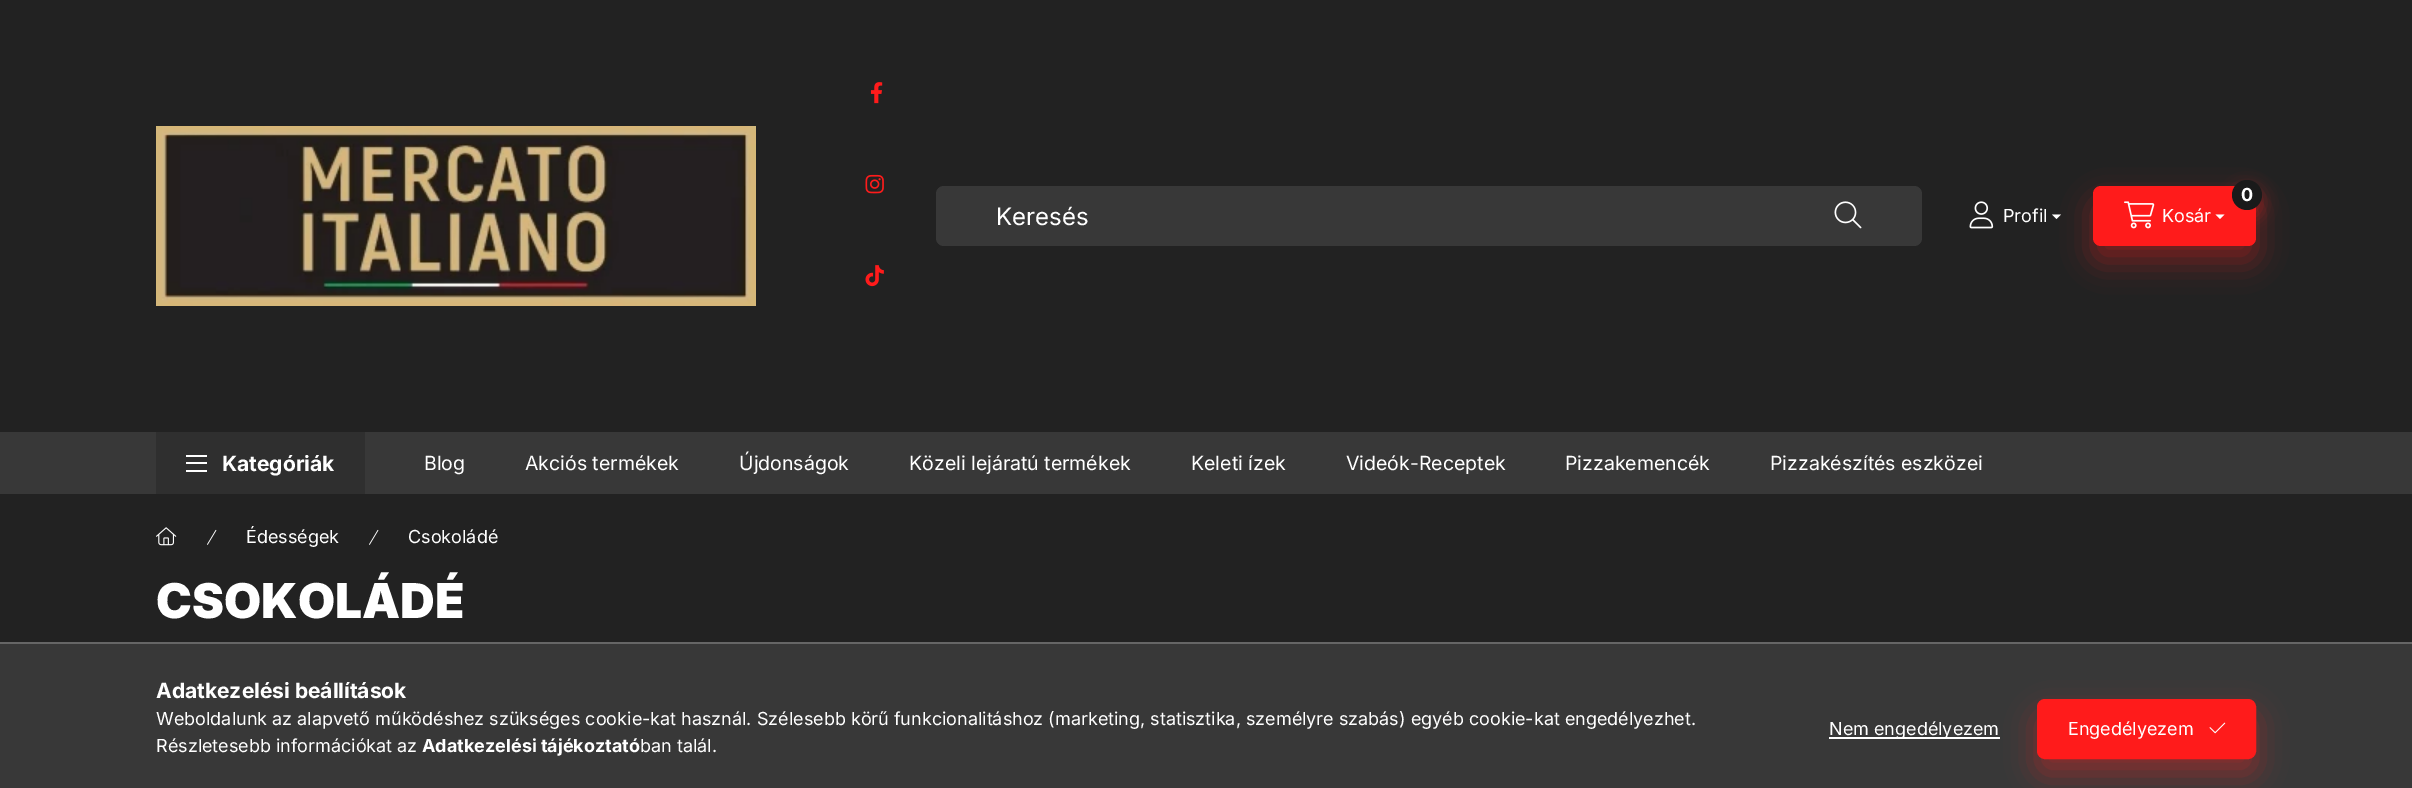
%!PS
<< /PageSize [2412 788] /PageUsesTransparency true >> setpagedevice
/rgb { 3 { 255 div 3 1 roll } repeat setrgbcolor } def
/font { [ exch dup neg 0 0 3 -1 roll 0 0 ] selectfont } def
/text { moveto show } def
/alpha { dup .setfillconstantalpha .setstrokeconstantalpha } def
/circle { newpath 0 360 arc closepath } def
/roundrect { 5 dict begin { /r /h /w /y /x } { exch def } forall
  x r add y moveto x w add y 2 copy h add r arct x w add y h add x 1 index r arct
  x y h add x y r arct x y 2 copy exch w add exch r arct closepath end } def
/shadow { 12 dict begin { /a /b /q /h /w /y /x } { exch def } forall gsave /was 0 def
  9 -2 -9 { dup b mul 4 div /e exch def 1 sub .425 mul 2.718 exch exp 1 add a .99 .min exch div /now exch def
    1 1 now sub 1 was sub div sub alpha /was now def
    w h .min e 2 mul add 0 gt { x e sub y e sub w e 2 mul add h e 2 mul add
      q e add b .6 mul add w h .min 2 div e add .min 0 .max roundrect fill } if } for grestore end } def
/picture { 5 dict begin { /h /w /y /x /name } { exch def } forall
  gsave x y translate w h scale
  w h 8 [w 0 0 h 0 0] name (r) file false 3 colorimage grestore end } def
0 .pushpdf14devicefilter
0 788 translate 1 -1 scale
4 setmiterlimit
34 34 34 rgb
0 0 2412 788 rectfill
(img_01.rgb) 156 126 600 180 picture
(img_02.rgb) 870 82 13 22 picture
(img_03.rgb) 865 174 19 20 picture
(img_04.rgb) 865 265 19 22 picture
56 56 56 rgb
936 186 986 60 8 roundrect fill
(img_05.rgb) 1834 201 28 28 picture
(img_06.rgb) 1969 201 25 28 picture
255 27 27 rgb
2093 201 163 60 8 15 0.4 shadow
255 255 255 rgb
2052 214.5 moveto 9 0 rlineto -4.5 4.5 rlineto closepath fill
255 27 27 rgb
2093 186 163 60 8 roundrect fill
2232 188 30 30 15 7.5 0.4 shadow
26 26 26 rgb
2247 195 15 circle fill
(img_07.rgb) 2124 201 31 28 picture
255 255 255 rgb
2215.5 214.5 moveto 9 0 rlineto -4.5 4.5 rlineto closepath fill
56 56 56 rgb
0 432 2412 62 rectfill
47 47 47 rgb
156 432 209 62 rectfill
255 255 255 rgb
186 455 21 2 rectfill
186 462 21 2 rectfill
186 470 21 2 rectfill
(img_08.rgb) 156 527 21 19 picture
(img_09.rgb) 207 529 10 16 picture
(img_09.rgb) 369 529 10 16 picture
56 56 56 rgb
0 644 2412 144 rectfill
102 102 102 rgb
0 642 2412 2 rectfill
255 255 255 rgb
1829 737 171 2 rectfill
255 27 27 rgb
2037 714 219 60 8 15 0.4 shadow
2038 700 217 58 7 roundrect gsave fill grestore
2 setlinewidth
stroke
(img_10.rgb) 2209 722 17 12 picture
/Inter-Regular 24 font
255 255 255 rgb
(Keresés) 996 225 text
/Inter-Regular 18 font
(Profil) 2003 222 text
/Inter-Bold 18 font
(0) 2241 201 text
/Inter-Regular 18 font
(Kosár) 2162 222 text
/Inter-Bold 21 font
(Kategóriák) 222 471 text
/Inter-Regular 19.5 font
(Blog) 424 470 text
(Akciós termékek) 525 470 text
(Újdonságok) 739 470 text
(Közeli lejáratú termékek) 909 470 text
(Keleti ízek) 1191 470 text
(Videók-Receptek) 1346 470 text
(Pizzakemencék) 1565 470 text
(Pizzakészítés eszközei) 1770 470 text
/Inter-Regular 18 font
(Édességek) 246 543 text
(Csokoládé) 408 543 text
/Inter-Black 48 font
(CSOKOLÁDÉ) 156 618 text
/Inter-Bold 21 font
(Adatkezelési beállítások) 156 698 text
/Inter-Regular 18 font
(Weboldalunk az alapvető működéshez szükséges cookie-kat használ. Szélesebb körű funkcionalitáshoz \(marketing, statisztika, személyre szabás\) egyéb cookie-kat engedélyezhet.) 156 725 text
(Részletesebb információkat az) 156 752 text
/Inter-Bold 18 font
(Adatkezelési tájékoztató) 422 752 text
/Inter-Regular 18 font
(ban talál.) 640 752 text
(Nem engedélyezem) 1829 735 text
(Engedélyezem) 2068 735 text
.poppdf14devicefilter showpage
